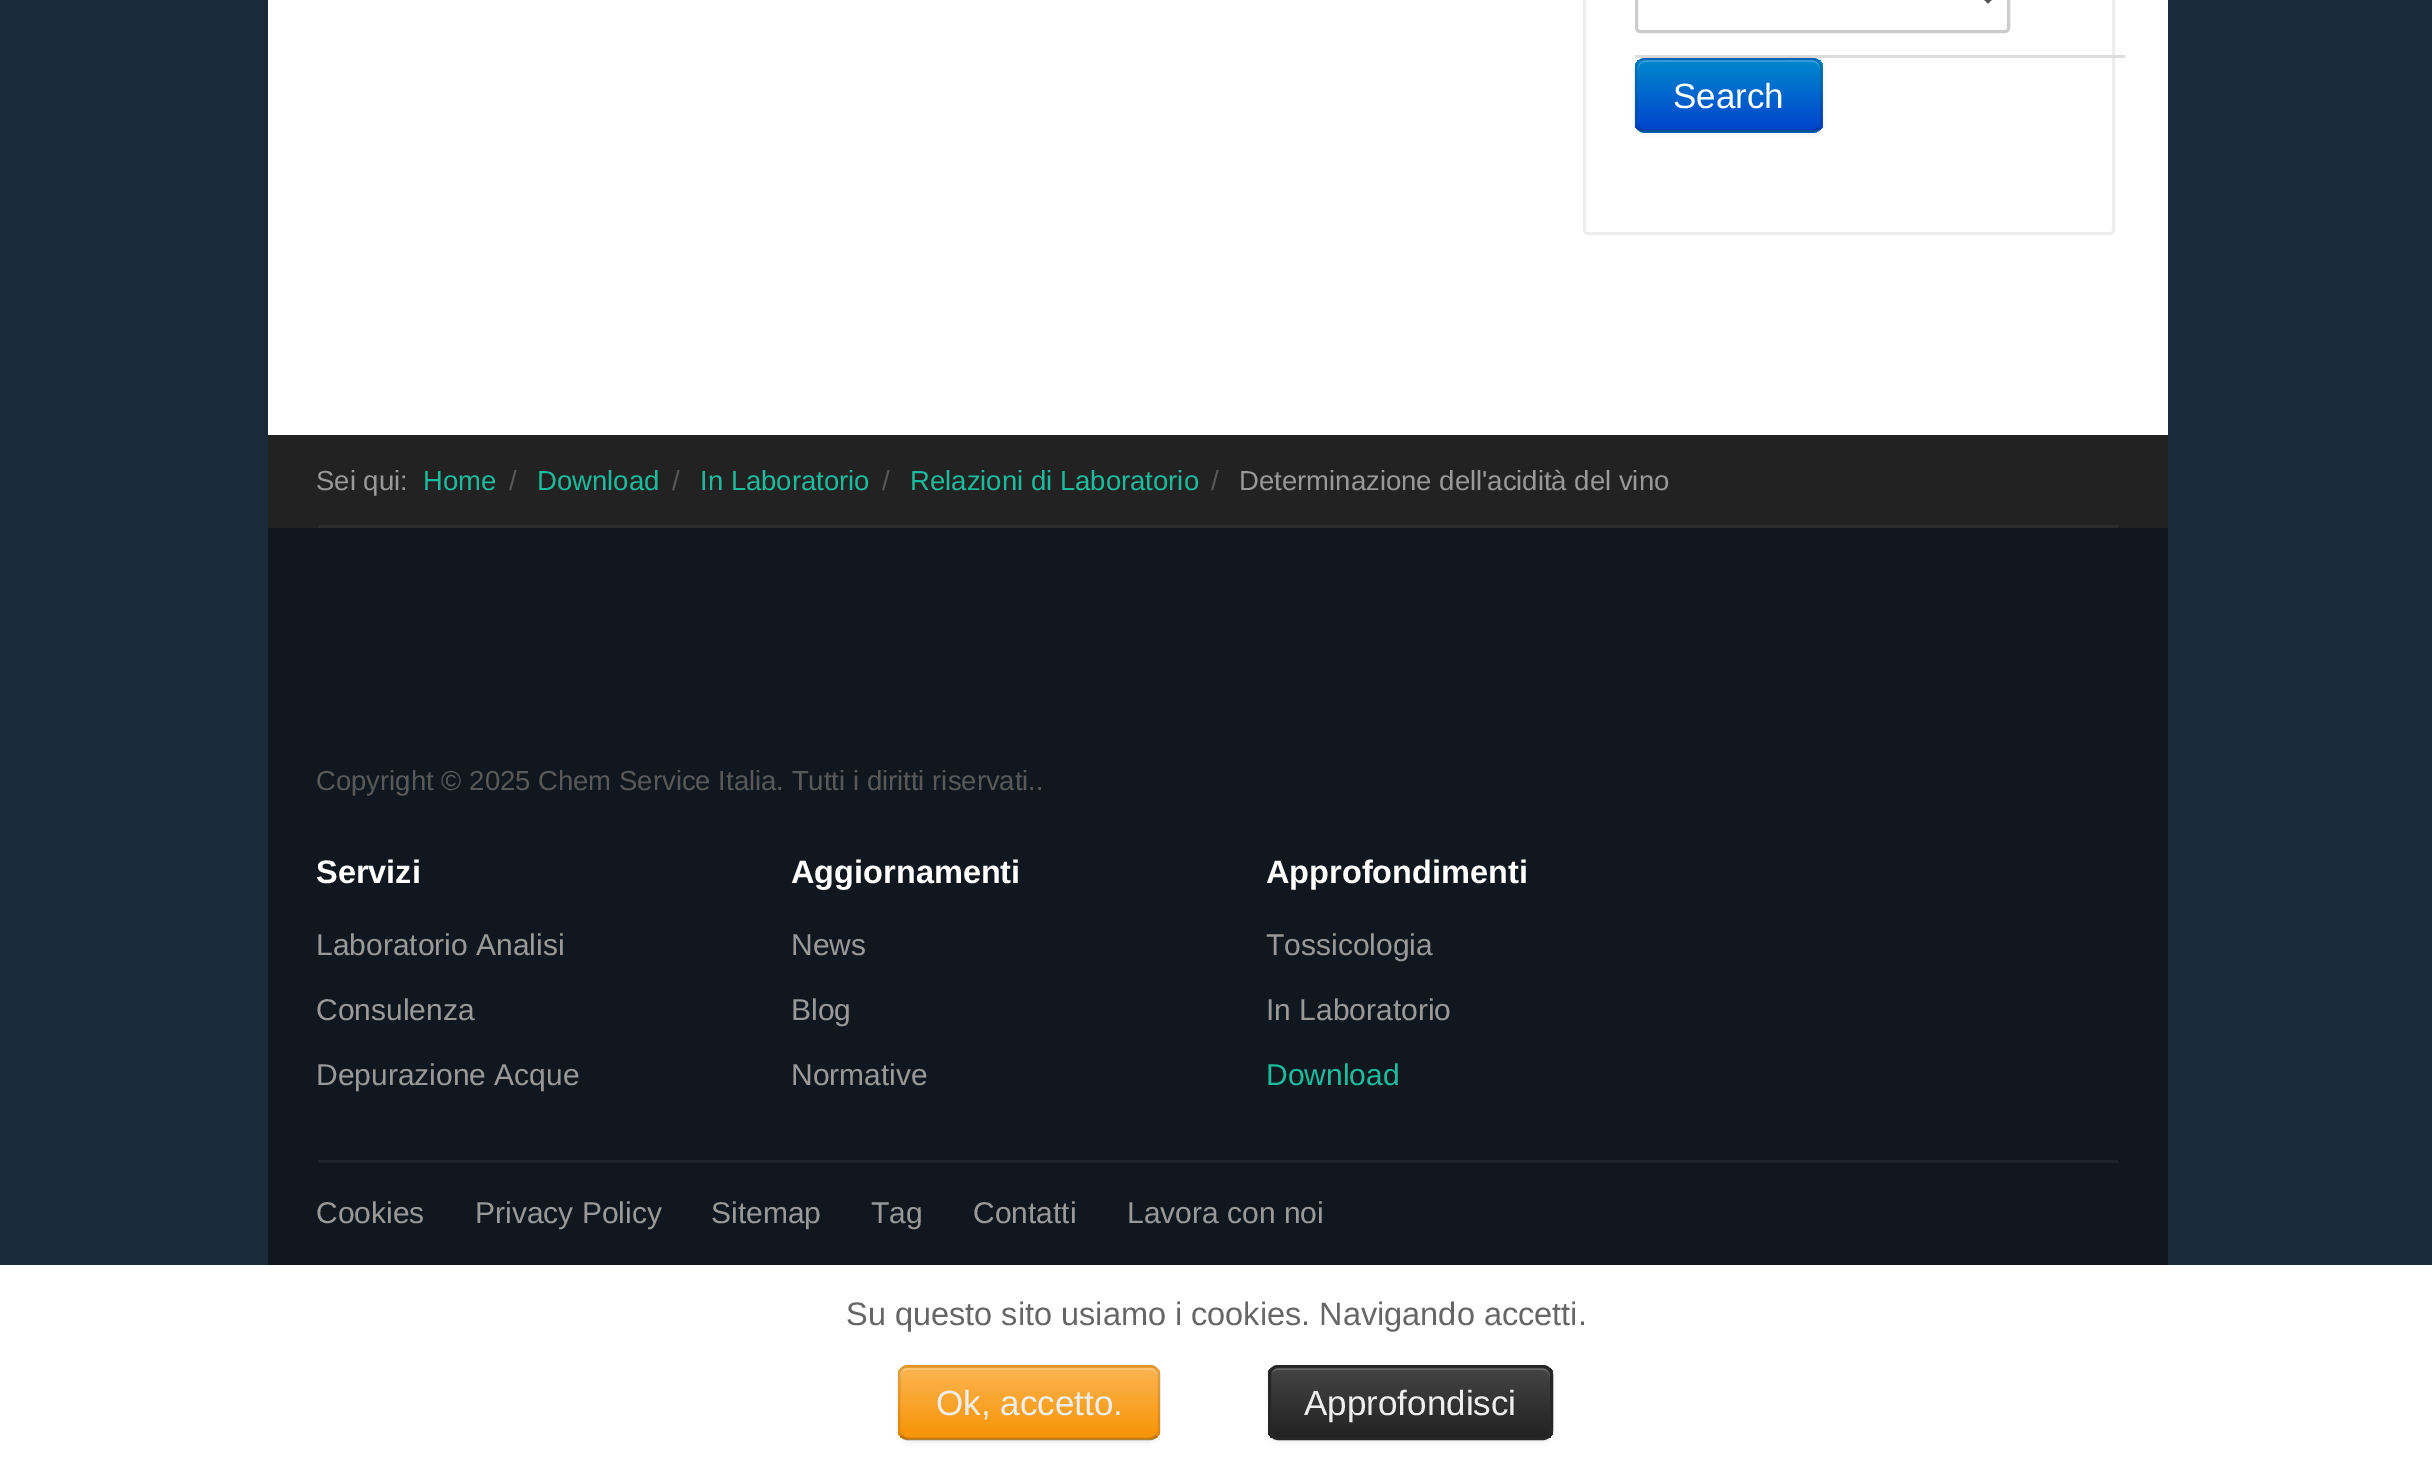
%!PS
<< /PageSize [2432 1464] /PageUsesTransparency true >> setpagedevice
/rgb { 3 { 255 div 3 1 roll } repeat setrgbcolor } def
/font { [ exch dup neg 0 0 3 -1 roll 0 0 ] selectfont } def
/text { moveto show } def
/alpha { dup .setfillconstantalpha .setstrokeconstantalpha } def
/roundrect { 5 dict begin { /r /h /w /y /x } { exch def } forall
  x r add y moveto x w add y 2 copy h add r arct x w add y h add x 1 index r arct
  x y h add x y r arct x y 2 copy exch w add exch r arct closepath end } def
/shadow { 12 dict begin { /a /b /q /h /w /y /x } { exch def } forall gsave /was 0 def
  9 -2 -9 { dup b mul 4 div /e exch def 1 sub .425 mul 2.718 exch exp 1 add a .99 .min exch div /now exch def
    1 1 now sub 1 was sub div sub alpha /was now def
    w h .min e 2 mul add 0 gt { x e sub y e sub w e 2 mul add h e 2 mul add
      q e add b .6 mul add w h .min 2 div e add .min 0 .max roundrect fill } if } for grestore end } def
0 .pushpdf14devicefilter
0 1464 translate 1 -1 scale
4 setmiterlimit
27 42 59 rgb
0 0 2432 1464 rectfill
255 255 255 rgb
268 0 1900 435 rectfill
238 238 238 rgb
3 setlinewidth
1584.5 -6.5 529 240 3.5 roundrect stroke
204 204 204 rgb
1636.5 -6.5 372 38 3.5 roundrect stroke
85 85 85 rgb
5 setlinewidth
1978 -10 moveto 10 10 rlineto 10 -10 rlineto stroke
221 221 221 rgb
1635 55 490 3 rectfill
0 0 0 rgb
1635 60 188 75 10 2.5 0.05 shadow
0 109 204 rgb
1635 58 188 75 10 roundrect fill
gsave
1635 58 188 75 10 roundrect clip newpath
gsave 1635 60 moveto 188 0 rlineto 0 70 rlineto -188 0 rlineto closepath clip newpath
<< /ShadingType 2 /ColorSpace /DeviceRGB /Coords [1729 60 1729 130] /Extend [true true] /Function << /FunctionType 2 /Domain [0 1] /C0 [0 0.533 0.8] /C1 [0 0.267 0.8] /N 1 >> >> shfill grestore
grestore
0.2 alpha
255 255 255 rgb
1645 62 moveto 167 0 rlineto 5 0 8 4 8 8 rcurveto 0 -2 rlineto 0 -4 -4 -8 -8 -8 rcurveto -166 0 rlineto -4 0 -8 4 -8 8 rcurveto 0 2 rlineto 0 -4 3 -8 7 -8 rcurveto closepath fill
0.25 alpha
0 0 0 rgb
2.5 setlinewidth
1818.5 128.5 moveto -1.5 2 -3.5 2.5 -6 2.5 rcurveto -167.5 0 rlineto -2.5 0 -4.5 -0.5 -6 -2.5 rcurveto stroke
0.1 alpha
1639 128.5 moveto -4 -3.5 -3 -10.5 -3 -15 rcurveto 0 -18.5 rlineto 0 -41.5 -5.5 -36 37 -36 rcurveto 111.5 0 rlineto 42.5 0 36.5 -5.5 36.5 36 rcurveto 0 18.5 rlineto 0 4.5 1.5 11.5 -2.5 15 rcurveto stroke
1 alpha
34 34 34 rgb
268 435 1900 93 rectfill
45 45 45 rgb
318 525 1800 3 rectfill
16 23 31 rgb
268 528 1900 737 rectfill
28 35 42 rgb
318 1160 1800 3 rectfill
255 255 255 rgb
0 1265 2432 199 rectfill
0 0 0 rgb
898 1368 262 75 10 2.5 0.05 shadow
250 167 50 rgb
898 1365 262 75 10 roundrect fill
gsave
898 1365 262 75 10 roundrect clip newpath
gsave 898 1368 moveto 262 0 rlineto 0 70 rlineto -262 0 rlineto closepath clip newpath
<< /ShadingType 2 /ColorSpace /DeviceRGB /Coords [1029 1368 1029 1438] /Extend [true true] /Function << /FunctionType 2 /Domain [0 1] /C0 [0.984 0.706 0.314] /C1 [0.973 0.58 0.024] /N 1 >> >> shfill grestore
grestore
0.2 alpha
255 255 255 rgb
908 1370 moveto 242 0 rlineto 4 0 8 3 8 8 rcurveto 0 -2 rlineto 0 -4 -4 -8 -8 -8 rcurveto -242 0 rlineto -4 0 -8 4 -8 8 rcurveto 0 2 rlineto 0 -5 3 -8 8 -8 rcurveto closepath fill
0.25 alpha
0 0 0 rgb
1156 1436 moveto -1.5 2 -3.5 3 -6 3 rcurveto -242.5 0 rlineto -2.5 0 -4.5 -1 -6 -3 rcurveto stroke
0.1 alpha
901.5 1436 moveto -2 -1.5 -2.5 -3.5 -2.5 -6 rcurveto 0 -55 rlineto 0 -2.5 0.5 -4.5 2.5 -6 rcurveto 1.5 -2 3.5 -3 6 -3 rcurveto 242.5 0 rlineto 2.5 0 4.5 1 6 3 rcurveto 2 1.5 3 3.5 3 6 rcurveto 0 55 rlineto 0 2.5 -1 4.5 -3 6 rcurveto stroke
1 alpha
1268 1368 285 75 10 2.5 0.05 shadow
gsave
1268 1365 285 75 10 roundrect clip newpath
gsave 1268 1368 moveto 285 0 rlineto 0 70 rlineto -285 0 rlineto closepath clip newpath
<< /ShadingType 2 /ColorSpace /DeviceRGB /Coords [1410 1368 1410 1438] /Extend [true true] /Function << /FunctionType 2 /Domain [0 1] /C0 [0.267 0.267 0.267] /C1 [0.133 0.133 0.133] /N 1 >> >> shfill grestore
grestore
105 105 105 rgb
1278 1370 moveto 264 0 rlineto 5 0 8 3 8 8 rcurveto 0 -2 rlineto 0 -4 -4 -8 -8 -8 rcurveto -264 0 rlineto -4 0 -8 4 -8 8 rcurveto 0 2 rlineto 0 -5 3 -8 8 -8 rcurveto closepath fill
38 38 38 rgb
3 setlinewidth
1269.5 1366.5 282 72 8.5 roundrect stroke
/LiberationSans-Regular 35 font
255 255 255 rgb
(Search) 1673 108 text
/LiberationSans-Regular 27.5 font
153 153 153 rgb
(Sei qui:) 316 490 text
26 188 156 rgb
(Home) 423 490 text
89 89 89 rgb
(/) 509 490 text
26 188 156 rgb
(Download) 537 490 text
89 89 89 rgb
(/) 672 490 text
26 188 156 rgb
(In Laboratorio) 700 490 text
89 89 89 rgb
(/) 882 490 text
26 188 156 rgb
(Relazioni di Laboratorio) 910 490 text
89 89 89 rgb
(/) 1211 490 text
153 153 153 rgb
(Determinazione dell'acidità del vino) 1239 490 text
89 89 89 rgb
(Copyright © 2025 Chem Service Italia. Tutti i diritti riservati..) 316 790 text
/LiberationSans-Bold 32.5 font
255 255 255 rgb
(Servizi) 316 883 text
/LiberationSans-Regular 30 font
153 153 153 rgb
(Laboratorio Analisi) 316 955 text
(Consulenza) 316 1020 text
(Depurazione Acque) 316 1085 text
/LiberationSans-Bold 32.5 font
255 255 255 rgb
(Aggiornamenti) 791 883 text
/LiberationSans-Regular 30 font
153 153 153 rgb
(News) 791 955 text
(Blog) 791 1020 text
(Normative) 791 1085 text
/LiberationSans-Bold 32.5 font
255 255 255 rgb
(Approfondimenti) 1266 883 text
/LiberationSans-Regular 30 font
153 153 153 rgb
(Tossicologia) 1266 955 text
(In Laboratorio) 1266 1020 text
26 188 156 rgb
(Download) 1266 1085 text
153 153 153 rgb
(Cookies) 316 1223 text
(Privacy Policy) 475 1223 text
(Sitemap) 711 1223 text
(Tag) 871 1223 text
(Contatti) 973 1223 text
(Lavora con noi) 1127 1223 text
/LiberationSans-Regular 32.5 font
102 102 102 rgb
(Su questo sito usiamo i cookies. Navigando accetti.) 846 1325 text
/LiberationSans-Regular 35 font
238 238 238 rgb
(Ok, accetto.) 936 1415 text
(Approfondisci) 1304 1415 text
.poppdf14devicefilter showpage
